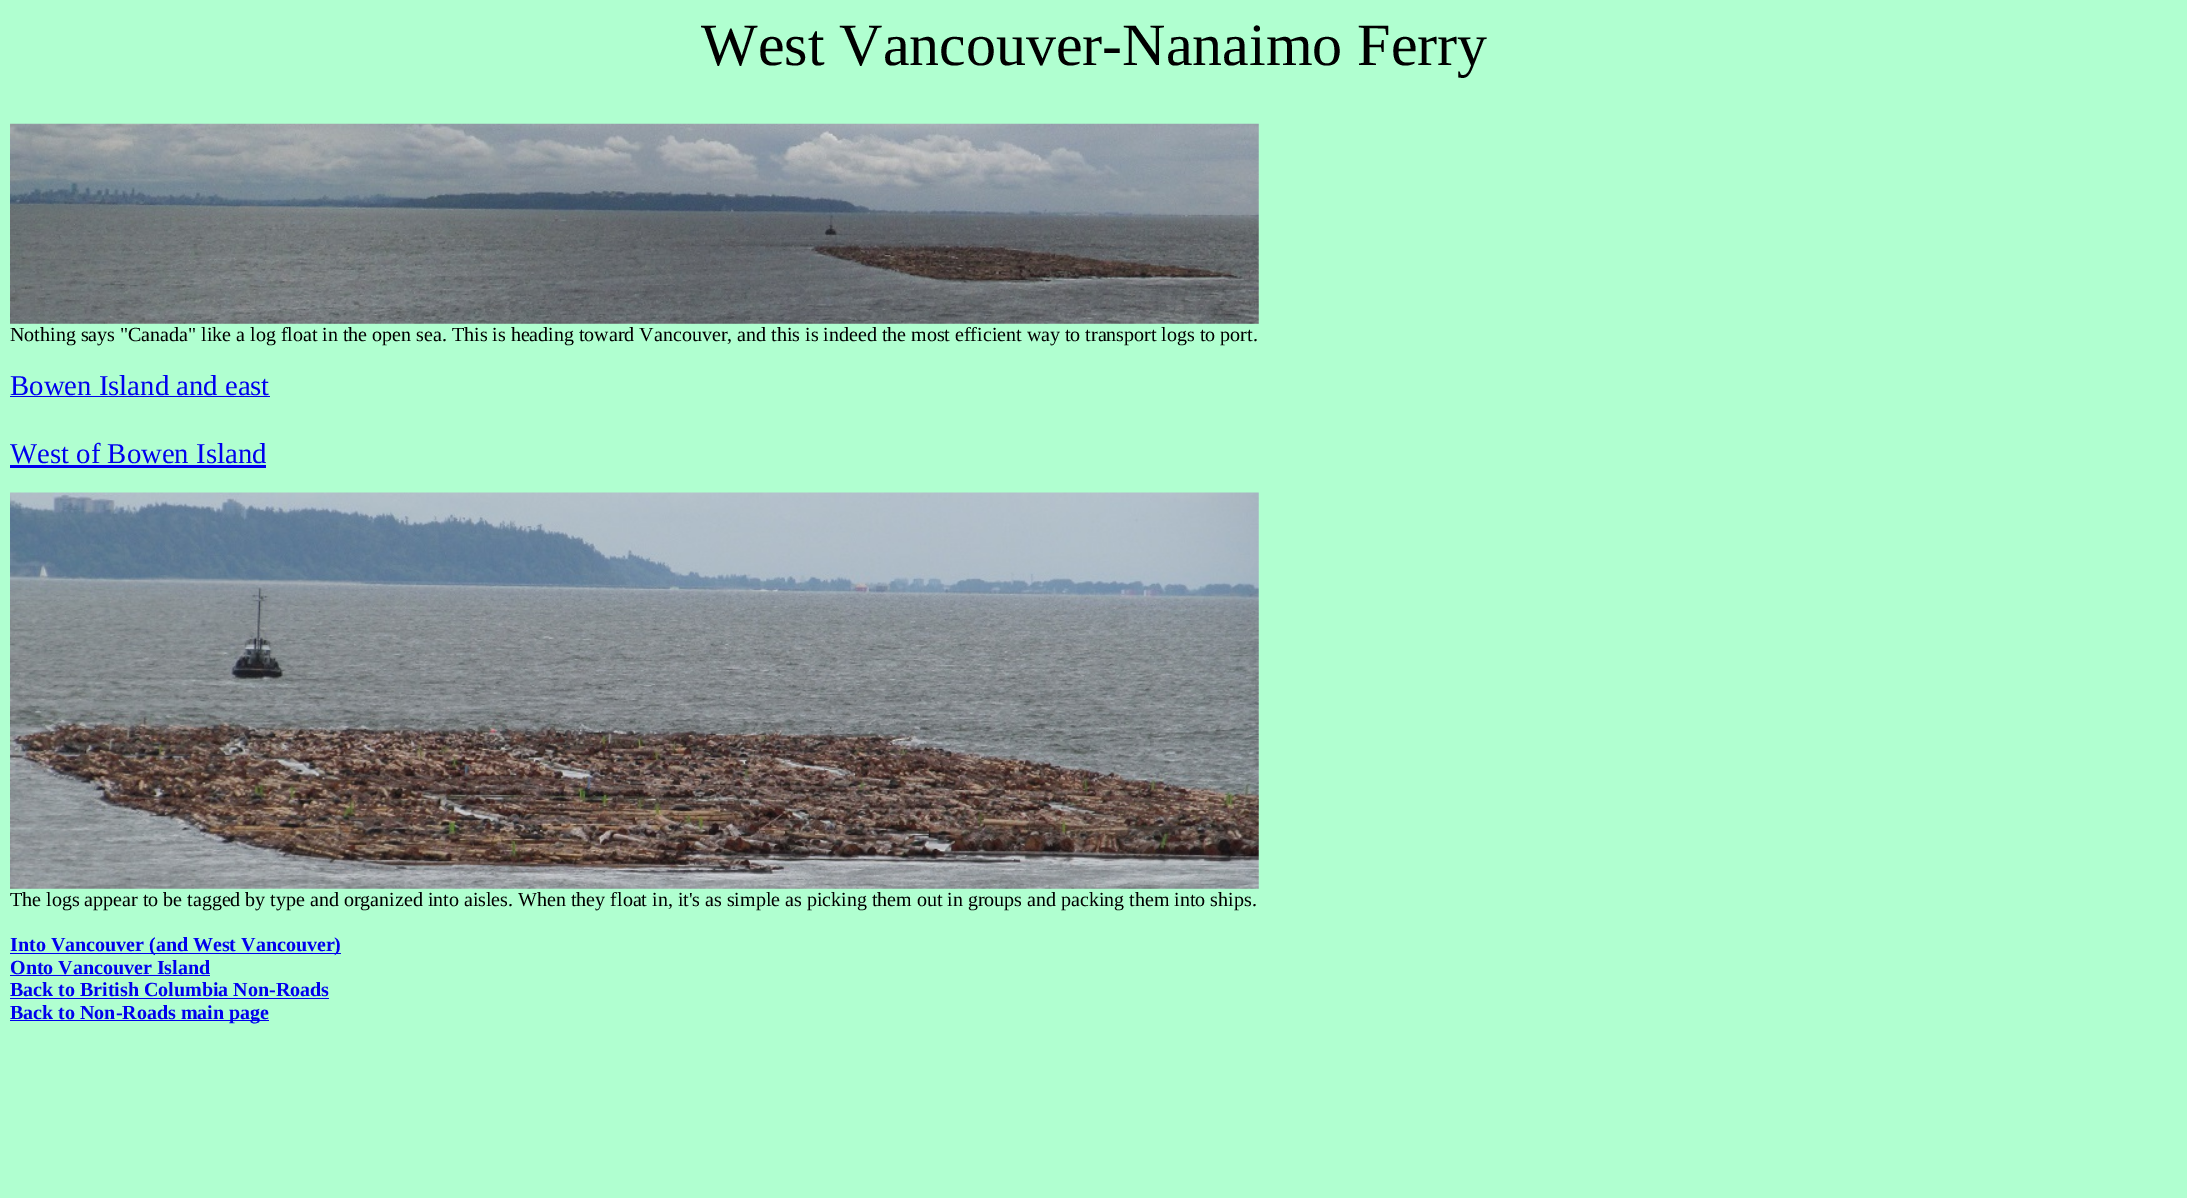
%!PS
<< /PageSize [2187 1198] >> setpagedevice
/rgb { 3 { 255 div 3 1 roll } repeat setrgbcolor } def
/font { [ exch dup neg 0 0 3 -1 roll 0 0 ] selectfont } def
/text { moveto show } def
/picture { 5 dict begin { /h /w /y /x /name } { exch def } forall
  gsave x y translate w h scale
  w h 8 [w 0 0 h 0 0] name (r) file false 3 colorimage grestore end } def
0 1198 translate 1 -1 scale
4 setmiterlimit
176 255 208 rgb
0 0 2187 1198 rectfill
(img_01.rgb) 10 123 1249 201 picture
0 0 238 rgb
10 396 260 1 rectfill
10 465 256 3 rectfill
(img_02.rgb) 10 492 1249 397 picture
10 953 331 1 rectfill
10 975 200 1 rectfill
10 998 319 1 rectfill
10 1020 259 1 rectfill
/LiberationSerif-Regular 60 font
0 0 0 rgb
(West Vancouver-Nanaimo Ferry) 701 65 text
/LiberationSerif-Regular 20 font
(Nothing says "Canada" like a log float in the open sea. This is heading toward Vancouver, and this is indeed the most efficient way to transport logs to port.) 10 341 text
/LiberationSerif-Regular 28.75 font
0 0 238 rgb
(Bowen Island and east) 10 395 text
(West of Bowen Island) 10 463 text
/LiberationSerif-Regular 20 font
0 0 0 rgb
(The logs appear to be tagged by type and organized into aisles. When they float in, it's as simple as picking them out in groups and packing them into ships.) 10 906 text
/LiberationSerif-Bold 20 font
0 0 238 rgb
(Into Vancouver \(and West Vancouver\)) 10 951 text
(Onto Vancouver Island) 10 974 text
(Back to British Columbia Non-Roads) 10 996 text
(Back to Non-Roads main page) 10 1019 text
showpage
